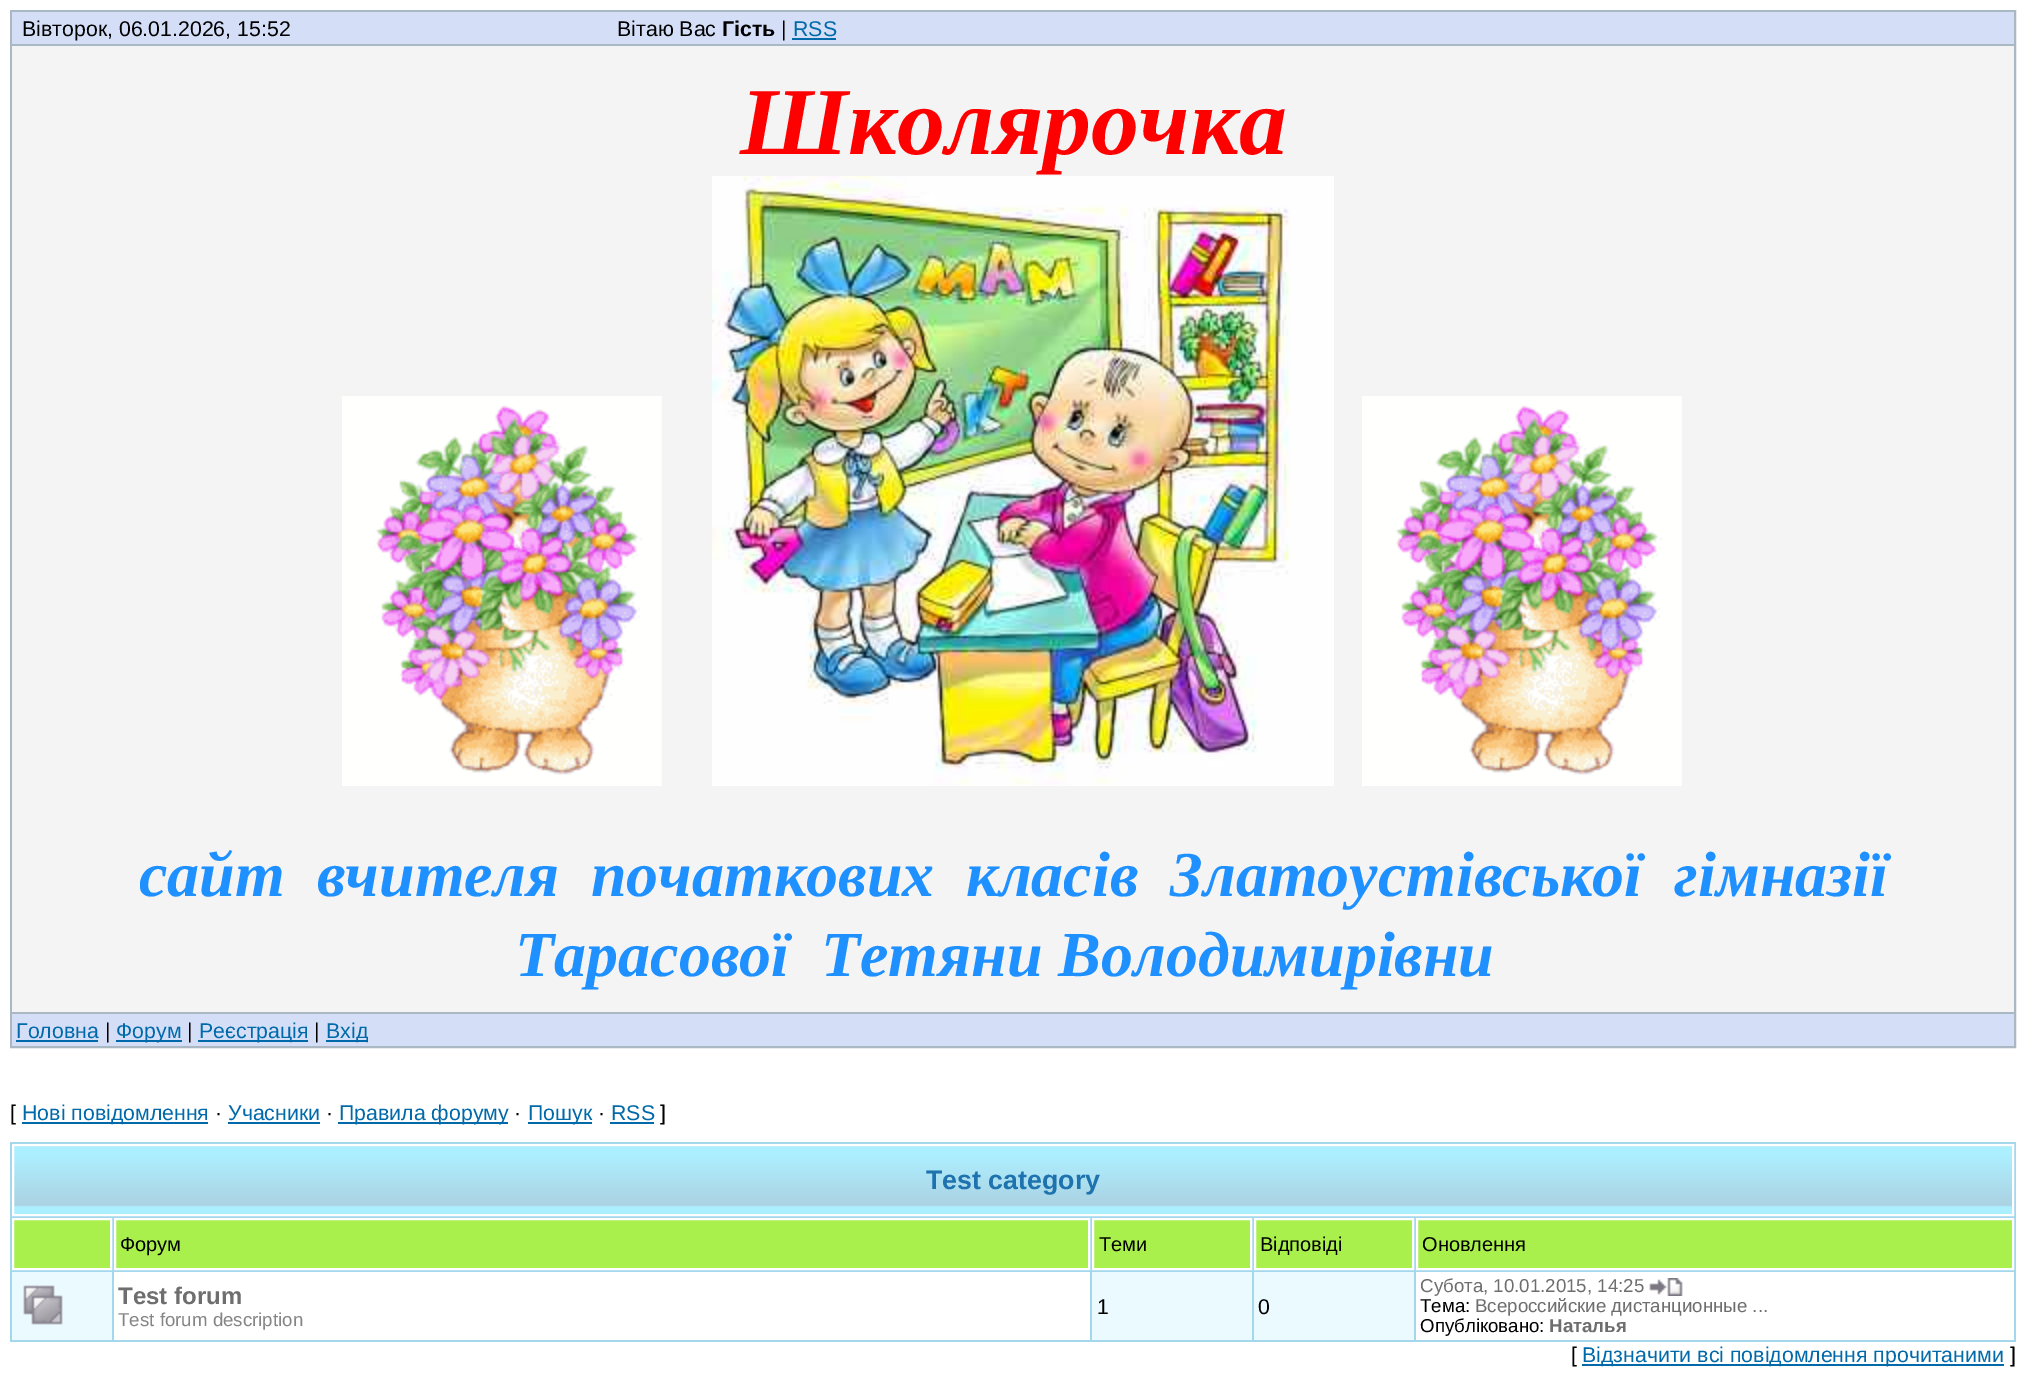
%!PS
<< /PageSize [2026 1395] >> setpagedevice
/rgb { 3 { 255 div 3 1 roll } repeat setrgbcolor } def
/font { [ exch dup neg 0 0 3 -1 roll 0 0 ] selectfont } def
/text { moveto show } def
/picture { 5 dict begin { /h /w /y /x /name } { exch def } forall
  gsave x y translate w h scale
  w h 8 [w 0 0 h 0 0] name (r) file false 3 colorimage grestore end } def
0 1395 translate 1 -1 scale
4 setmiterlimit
255 255 255 rgb
0 0 2026 1395 rectfill
169 184 194 rgb
2 setlinewidth
11 11 2004 1036 rectstroke
212 223 247 rgb
12 12 2002 32 rectfill
0 105 169 rgb
792 38 44 2 rectfill
244 244 244 rgb
12 46 2002 966 rectfill
169 184 194 rgb
12 44 2002 2 rectfill
12 1012 2002 2 rectfill
(img_01.rgb) 342 396 320 390 picture
(img_02.rgb) 712 176 622 610 picture
(img_01.rgb) 1362 396 320 390 picture
212 223 247 rgb
12 1014 2002 32 rectfill
0 105 169 rgb
16 1040 82 2 rectfill
116 1040 66 2 rectfill
198 1040 110 2 rectfill
326 1040 42 2 rectfill
22 1122 186 2 rectfill
228 1122 92 2 rectfill
338 1122 170 2 rectfill
528 1122 64 2 rectfill
610 1122 44 2 rectfill
162 215 236 rgb
10 1142 2006 200 rectfill
(img_03.rgb) 14 1146 1998 68 picture
255 255 255 rgb
13 1145 2000 70 rectstroke
170 240 76 rgb
13 1219 moveto 98 0 rlineto 0 50 rlineto -98 0 rlineto closepath gsave fill grestore
255 255 255 rgb
stroke
170 240 76 rgb
115 1219 moveto 974 0 rlineto 0 50 rlineto -974 0 rlineto closepath gsave fill grestore
255 255 255 rgb
stroke
170 240 76 rgb
1093 1219 moveto 158 0 rlineto 0 50 rlineto -158 0 rlineto closepath gsave fill grestore
255 255 255 rgb
stroke
170 240 76 rgb
1255 1219 moveto 158 0 rlineto 0 50 rlineto -158 0 rlineto closepath gsave fill grestore
255 255 255 rgb
stroke
170 240 76 rgb
1417 1219 moveto 596 0 rlineto 0 50 rlineto -596 0 rlineto closepath gsave fill grestore
255 255 255 rgb
stroke
235 250 255 rgb
12 1272 100 68 rectfill
(img_04.rgb) 23 1285 40 40 picture
255 255 255 rgb
114 1272 976 68 rectfill
235 250 255 rgb
1092 1272 160 68 rectfill
1254 1272 160 68 rectfill
255 255 255 rgb
1416 1272 598 68 rectfill
(img_05.rgb) 1649 1278 34 18 picture
0 105 169 rgb
1582 1364 422 2 rectfill
/LiberationSans-Regular 21.3 font
0 0 0 rgb
(Вівторок, 06.01.2026, 15:52) 22 36 text
(Вітаю Вас) 617 36 text
/LiberationSans-Bold 21.3 font
(Гість) 722 36 text
/LiberationSans-Regular 21.3 font
(|) 781 36 text
0 105 169 rgb
(RSS) 793 36 text
/LiberationSerif-BoldItalic 96 font
255 0 0 rgb
(Школярочка) 740 154 text
/LiberationSerif-BoldItalic 64 font
30 144 255 rgb
(сайт  вчителя  початкових  класів  Златоустівської  гімназії) 139 896 text
(Тарасової  Тетяни Володимирівни) 515 976 text
/LiberationSans-Regular 21.3 font
0 105 169 rgb
(Головна) 16 1038 text
0 0 0 rgb
(|) 105 1038 text
0 105 169 rgb
(Форум) 116 1038 text
0 0 0 rgb
(|) 187 1038 text
0 105 169 rgb
(Реєстрація) 199 1038 text
0 0 0 rgb
(|) 314 1038 text
0 105 169 rgb
(Вхід) 326 1038 text
0 0 0 rgb
([) 10 1120 text
0 105 169 rgb
(Нові повідомлення) 22 1120 text
0 0 0 rgb
(·) 215 1120 text
0 105 169 rgb
(Учасники) 228 1120 text
0 0 0 rgb
(·) 326 1120 text
0 105 169 rgb
(Правила форуму) 339 1120 text
0 0 0 rgb
(·) 514 1120 text
0 105 169 rgb
(Пошук) 528 1120 text
0 0 0 rgb
(·) 598 1120 text
0 105 169 rgb
(RSS) 611 1120 text
0 0 0 rgb
(]) 660 1120 text
/LiberationSans-Bold 26.75 font
30 115 175 rgb
(Test category) 926 1189 text
/LiberationSans-Regular 20 font
0 0 0 rgb
(Форум) 120 1251 text
(Теми) 1099 1251 text
(Відповіді) 1260 1251 text
(Оновлення) 1422 1251 text
/LiberationSans-Bold 24 font
110 110 110 rgb
(Test forum) 118 1304 text
/LiberationSans-Regular 18.7 font
133 133 133 rgb
(Test forum description) 118 1326 text
/LiberationSans-Regular 21.3 font
0 0 0 rgb
(1) 1097 1314 text
(0) 1258 1314 text
/LiberationSans-Regular 18.7 font
110 110 110 rgb
(Субота, 10.01.2015, 14:25) 1420 1292 text
0 0 0 rgb
(Тема:) 1420 1312 text
110 110 110 rgb
(Всероссийские дистанционные ...) 1475 1312 text
0 0 0 rgb
(Опубліковано:) 1420 1332 text
/LiberationSans-Bold 18.7 font
110 110 110 rgb
(Наталья) 1549 1332 text
/LiberationSans-Regular 21.3 font
0 0 0 rgb
([) 1571 1362 text
0 105 169 rgb
(Відзначити всі повідомлення прочитаними) 1582 1362 text
0 0 0 rgb
(]) 2010 1362 text
showpage
